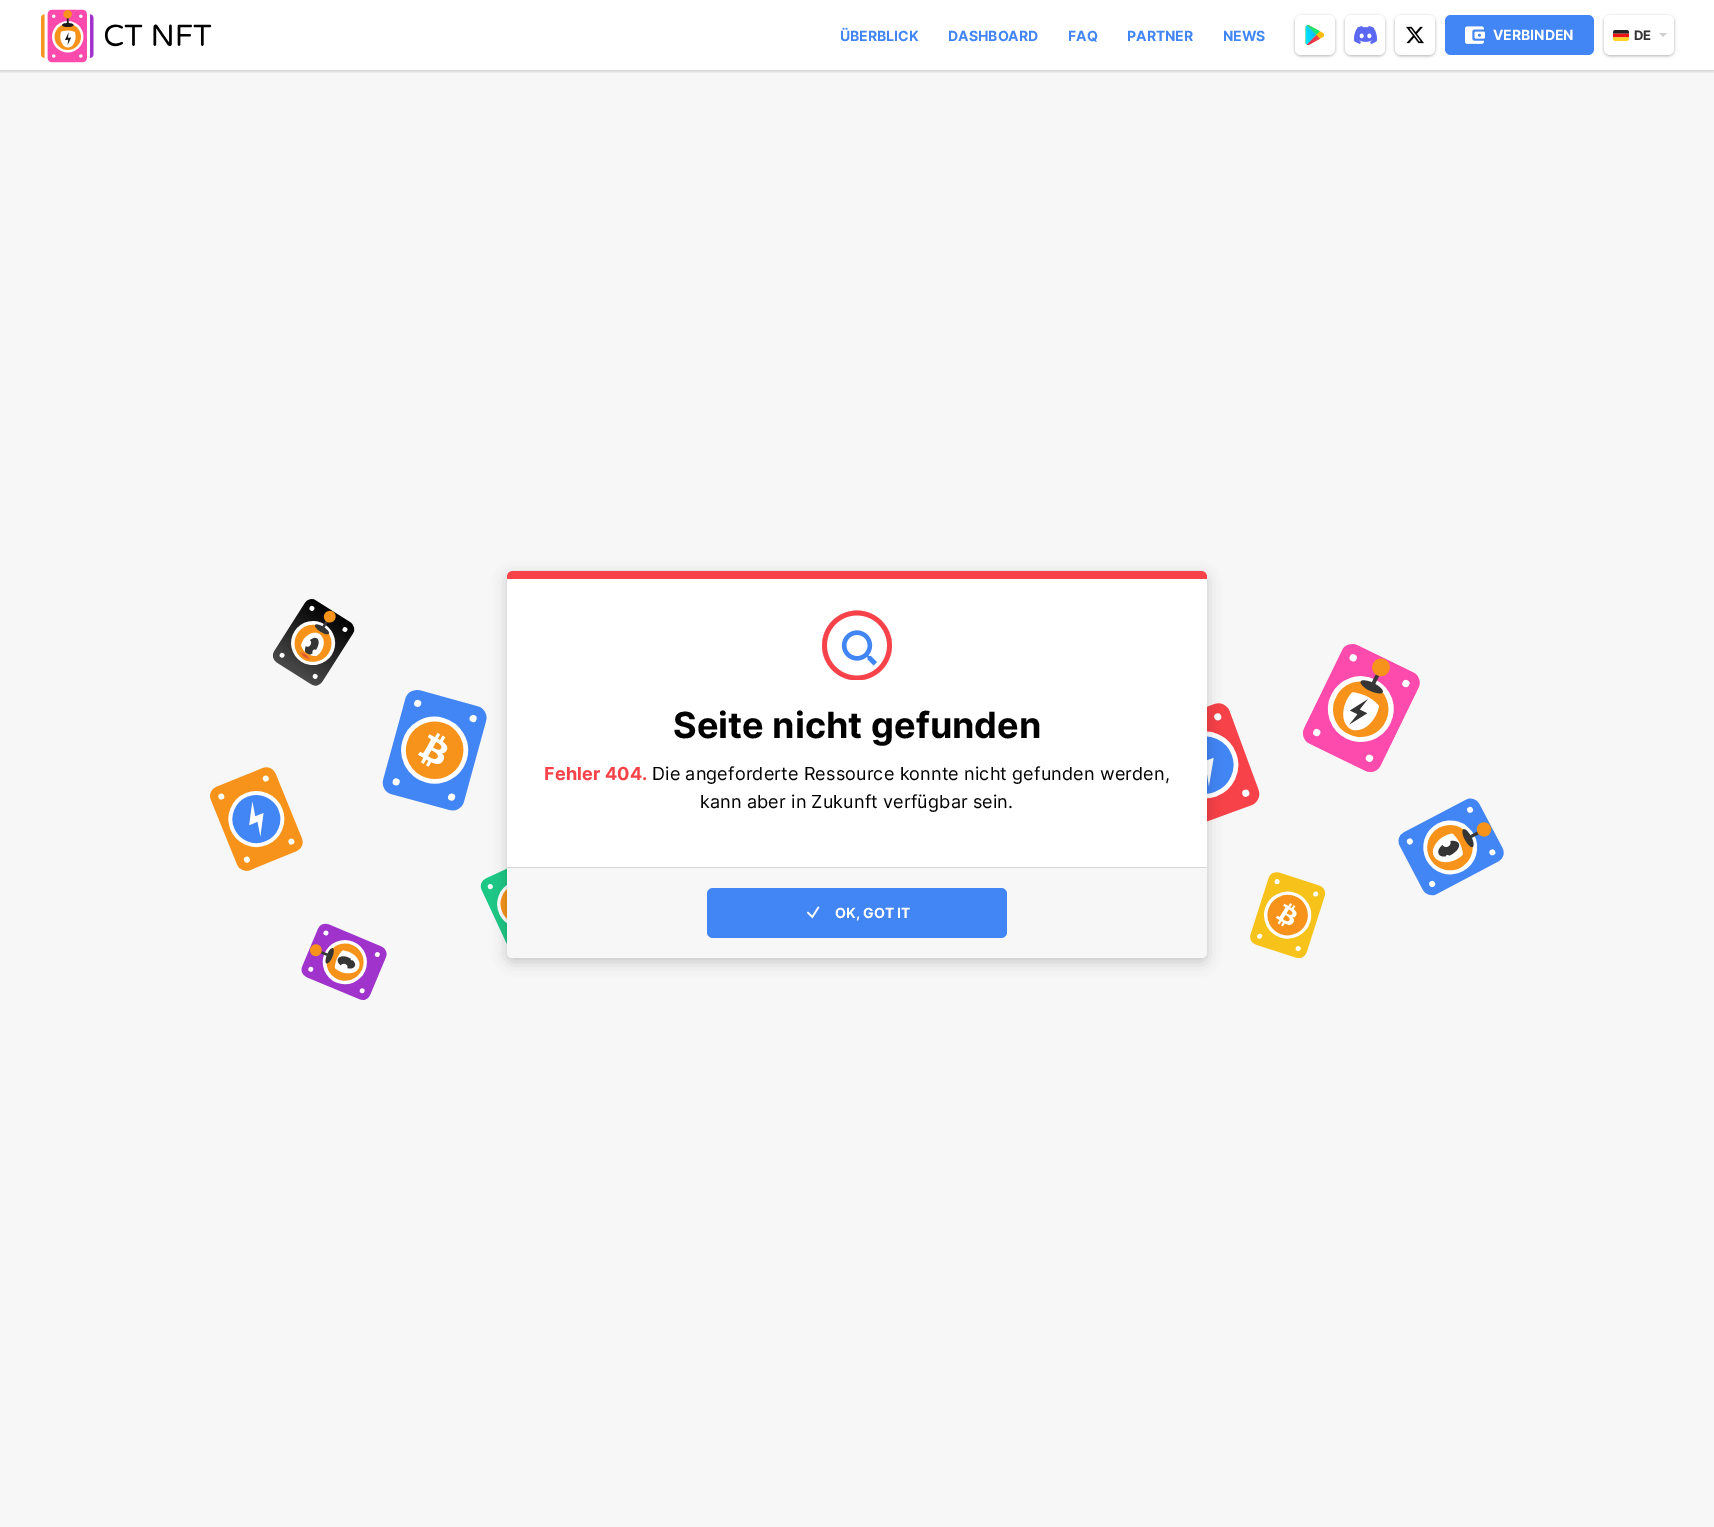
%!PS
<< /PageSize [1714 1527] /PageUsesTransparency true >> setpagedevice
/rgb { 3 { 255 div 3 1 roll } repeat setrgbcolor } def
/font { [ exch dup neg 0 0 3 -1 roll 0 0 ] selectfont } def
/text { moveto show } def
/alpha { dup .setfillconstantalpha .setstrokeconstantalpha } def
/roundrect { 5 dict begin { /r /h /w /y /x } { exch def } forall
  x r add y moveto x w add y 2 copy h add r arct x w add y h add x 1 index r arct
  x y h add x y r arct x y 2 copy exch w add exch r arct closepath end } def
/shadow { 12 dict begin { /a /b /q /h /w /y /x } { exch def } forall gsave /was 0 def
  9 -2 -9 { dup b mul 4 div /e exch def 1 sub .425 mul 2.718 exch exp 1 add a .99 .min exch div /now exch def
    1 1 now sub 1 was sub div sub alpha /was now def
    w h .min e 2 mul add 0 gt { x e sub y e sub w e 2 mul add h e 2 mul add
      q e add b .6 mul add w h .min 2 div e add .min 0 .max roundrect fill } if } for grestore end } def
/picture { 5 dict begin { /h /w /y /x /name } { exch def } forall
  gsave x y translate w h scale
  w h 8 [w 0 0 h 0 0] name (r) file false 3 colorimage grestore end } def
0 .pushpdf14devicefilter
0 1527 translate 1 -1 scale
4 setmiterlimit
255 255 255 rgb
0 0 1714 1527 rectfill
247 247 247 rgb
0 70 1714 1457 rectfill
gsave
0 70 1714 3 rectclip
0 0 0 rgb
0 1 1714 70 0 1.5 0.2 shadow
grestore
(img_01.rgb) 41 9 171 54 picture
0 0 0 rgb
1295 16 40 40 6 1.5 0.3 shadow
255 255 255 rgb
1295 15 40 40 6 roundrect fill
(img_02.rgb) 1305 25 19 20 picture
0 0 0 rgb
1345 16 40 40 6 1.5 0.3 shadow
255 255 255 rgb
1345 15 40 40 6 roundrect fill
(img_03.rgb) 1354 26 23 18 picture
0 0 0 rgb
1395 16 40 40 6 1.5 0.3 shadow
255 255 255 rgb
1395 15 40 40 6 roundrect fill
(img_04.rgb) 1406 26 18 18 picture
66 133 244 rgb
1445 15 149 40 6 roundrect fill
(img_05.rgb) 1465 26 20 18 picture
0 0 0 rgb
1604 16 70 40 6 1.5 0.3 shadow
255 255 255 rgb
1604 15 70 40 6 roundrect fill
(img_06.rgb) 1613 30 16 11 picture
208 208 208 rgb
1659 33 moveto 8 0 rlineto -4 4 rlineto closepath fill
(img_07.rgb) 210 599 1294 401 picture
0 0 0 rgb
507 575 700 387 6 7 0.2 shadow
255 255 255 rgb
507 571 700 387 6 roundrect fill
247 66 73 rgb
513 571 moveto 688 0 rlineto 3.5 0 6 2.5 6 6 rcurveto 0 2 rlineto -700 0 rlineto 0 -2 rlineto 0 -3.5 2.5 -6 6 -6 rcurveto closepath fill
(img_08.rgb) 822 610 70 70 picture
247 247 247 rgb
507 867 moveto 700 0 rlineto 0 85 rlineto 0 3.5 -2.5 6 -6 6 rcurveto -688 0 rlineto -3.5 0 -6 -2.5 -6 -6 rcurveto closepath fill
214 214 214 rgb
507 867 700 1 rectfill
66 133 244 rgb
707 888 300 50 6 roundrect fill
(img_09.rgb) 807 906 13 13 picture
/Inter-Bold 14 font
(ÜBERBLICK) 840 41 text
(DASHBOARD) 948 41 text
(FAQ) 1068 41 text
(PARTNER) 1127 41 text
(NEWS) 1223 41 text
255 255 255 rgb
(VERBINDEN) 1493 40 text
/Inter-Bold 13 font
50 50 50 rgb
(DE) 1634 40 text
/Inter-Bold 36 font
0 0 0 rgb
673 738 moveto 0.1 0 (Seite nicht gefunden) ashow
/Inter-Bold 18 font
247 66 73 rgb
544 780 moveto 0.15 0 (Fehler 404.) ashow
/Inter-Regular 18 font
0 0 0 rgb
652 780 moveto 0.15 0 (Die angeforderte Ressource konnte nicht gefunden werden,) ashow
700 808 moveto 0.15 0 (kann aber in Zukunft verfügbar sein.) ashow
/Inter-Bold 14 font
255 255 255 rgb
(OK, GOT IT) 835 918 text
.poppdf14devicefilter showpage
